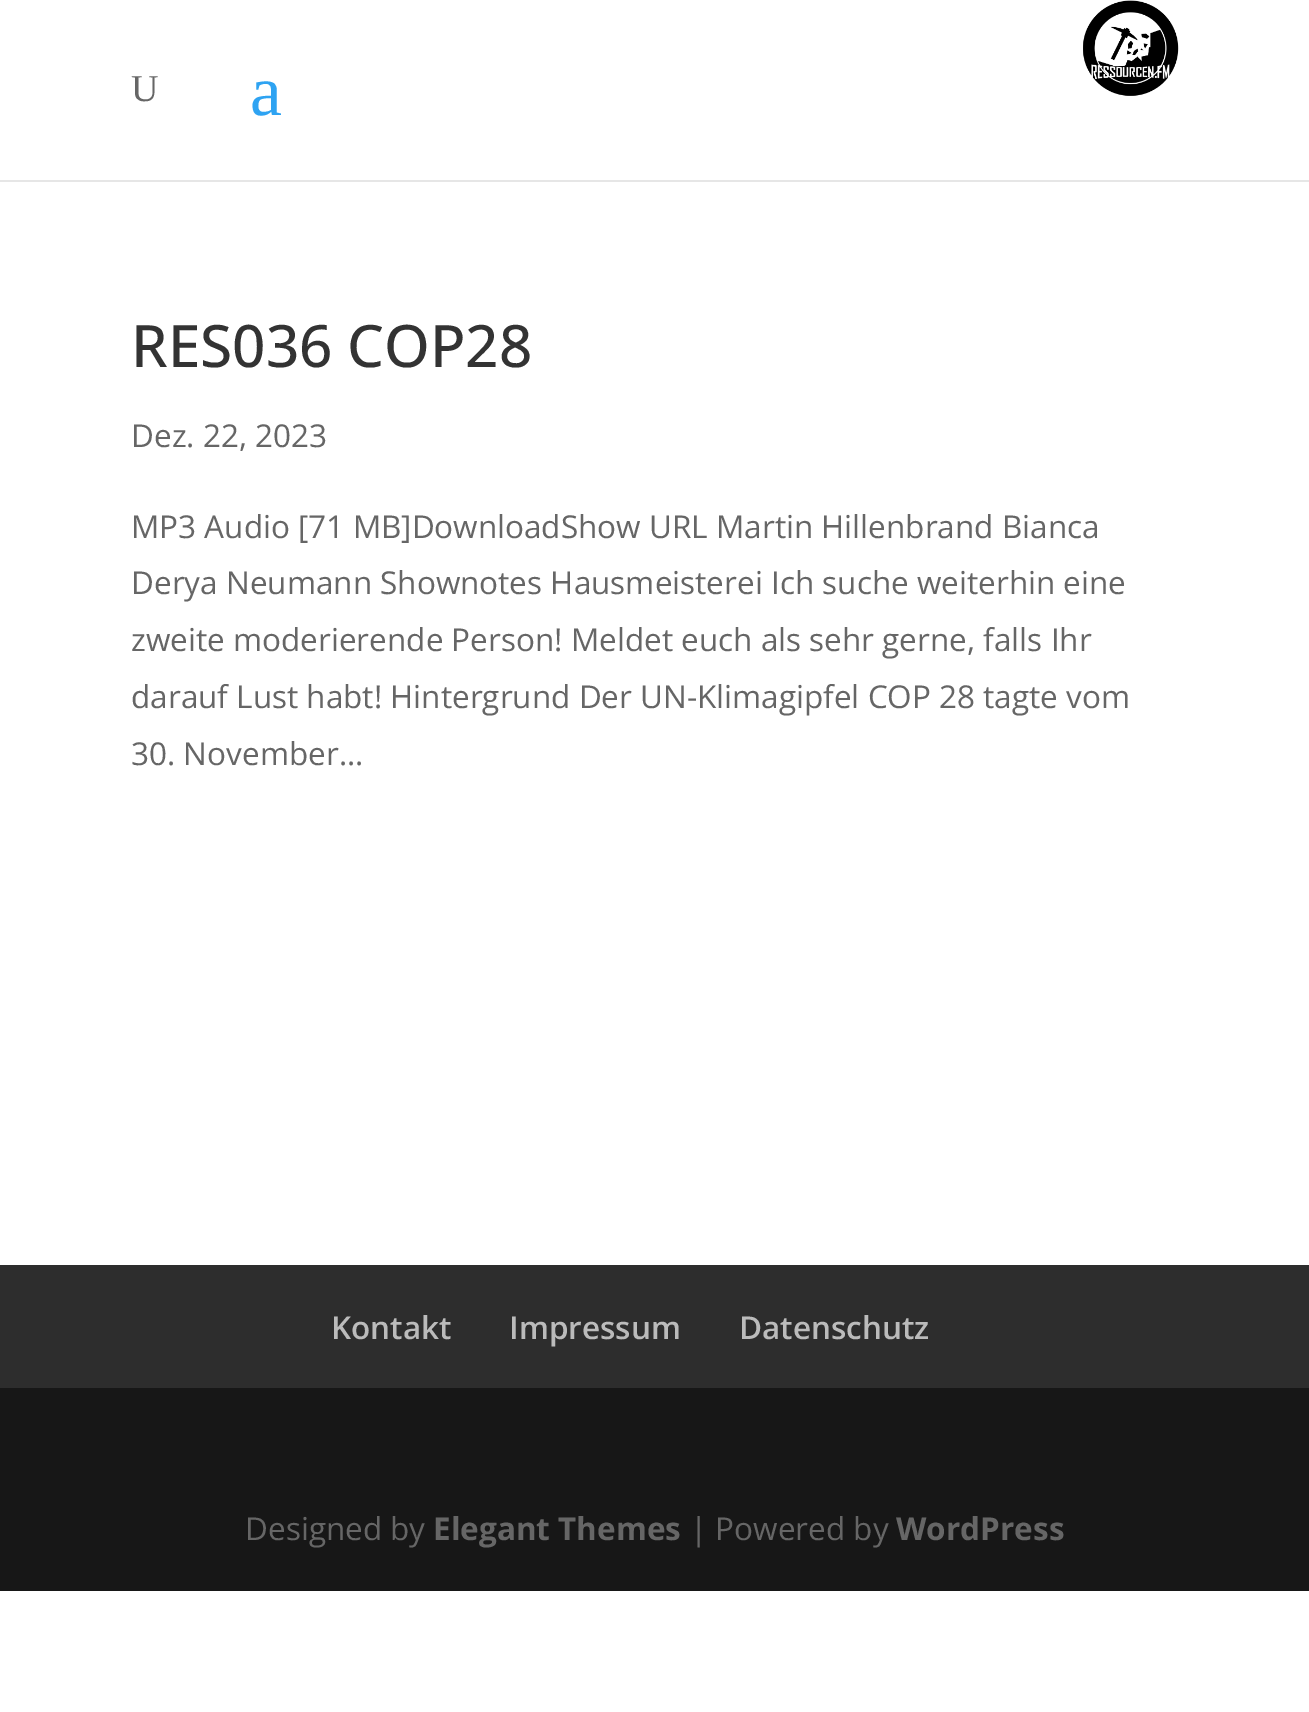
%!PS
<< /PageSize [1309 1712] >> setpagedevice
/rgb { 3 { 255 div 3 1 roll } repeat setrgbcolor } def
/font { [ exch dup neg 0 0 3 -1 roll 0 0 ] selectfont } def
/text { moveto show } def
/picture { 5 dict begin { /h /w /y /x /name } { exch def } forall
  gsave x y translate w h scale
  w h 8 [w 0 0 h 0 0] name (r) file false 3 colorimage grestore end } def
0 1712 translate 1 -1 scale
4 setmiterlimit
255 255 255 rgb
0 0 1309 1712 rectfill
230 230 230 rgb
0 180 moveto 0 2 rlineto 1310 0 rlineto 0 -180 rlineto 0 178 rlineto closepath fill
(img_01.rgb) 1083 0 96 96 picture
45 45 45 rgb
0 1265 1309 123 rectfill
23 23 23 rgb
0 1388 1309 203 rectfill
/LiberationSerif-Regular 38 font
102 102 102 rgb
(U) 131 101 text
/LiberationSerif-Regular 72 font
46 163 242 rgb
(a) 250 115 text
/OpenSans-Medium 58.5 font
51 51 51 rgb
131 367 moveto -1 0 32 (RES036 COP28) widthshow
/OpenSans-Regular 31.5 font
102 102 102 rgb
(Dez. 22, 2023) 131 447 text
(MP3 Audio [71 MB]DownloadShow URL Martin Hillenbrand Bianca) 131 538 text
(Derya Neumann Shownotes Hausmeisterei Ich suche weiterhin eine) 131 594 text
(zweite moderierende Person! Meldet euch als sehr gerne, falls Ihr) 131 651 text
(darauf Lust habt! Hintergrund Der UN-Klimagipfel COP 28 tagte vom) 131 708 text
(30. November...) 131 765 text
/OpenSans-SemiBold 31.5 font
187 187 187 rgb
(Kontakt) 331 1339 text
(Impressum) 509 1339 text
(Datenschutz) 739 1339 text
/OpenSans-Regular 31.5 font
102 102 102 rgb
(Designed by) 245 1540 text
/OpenSans-Bold 31.5 font
(Elegant Themes) 433 1540 text
/OpenSans-Regular 31.5 font
(| Powered by) 690 1540 text
/OpenSans-Bold 31.5 font
(WordPress) 896 1540 text
showpage
